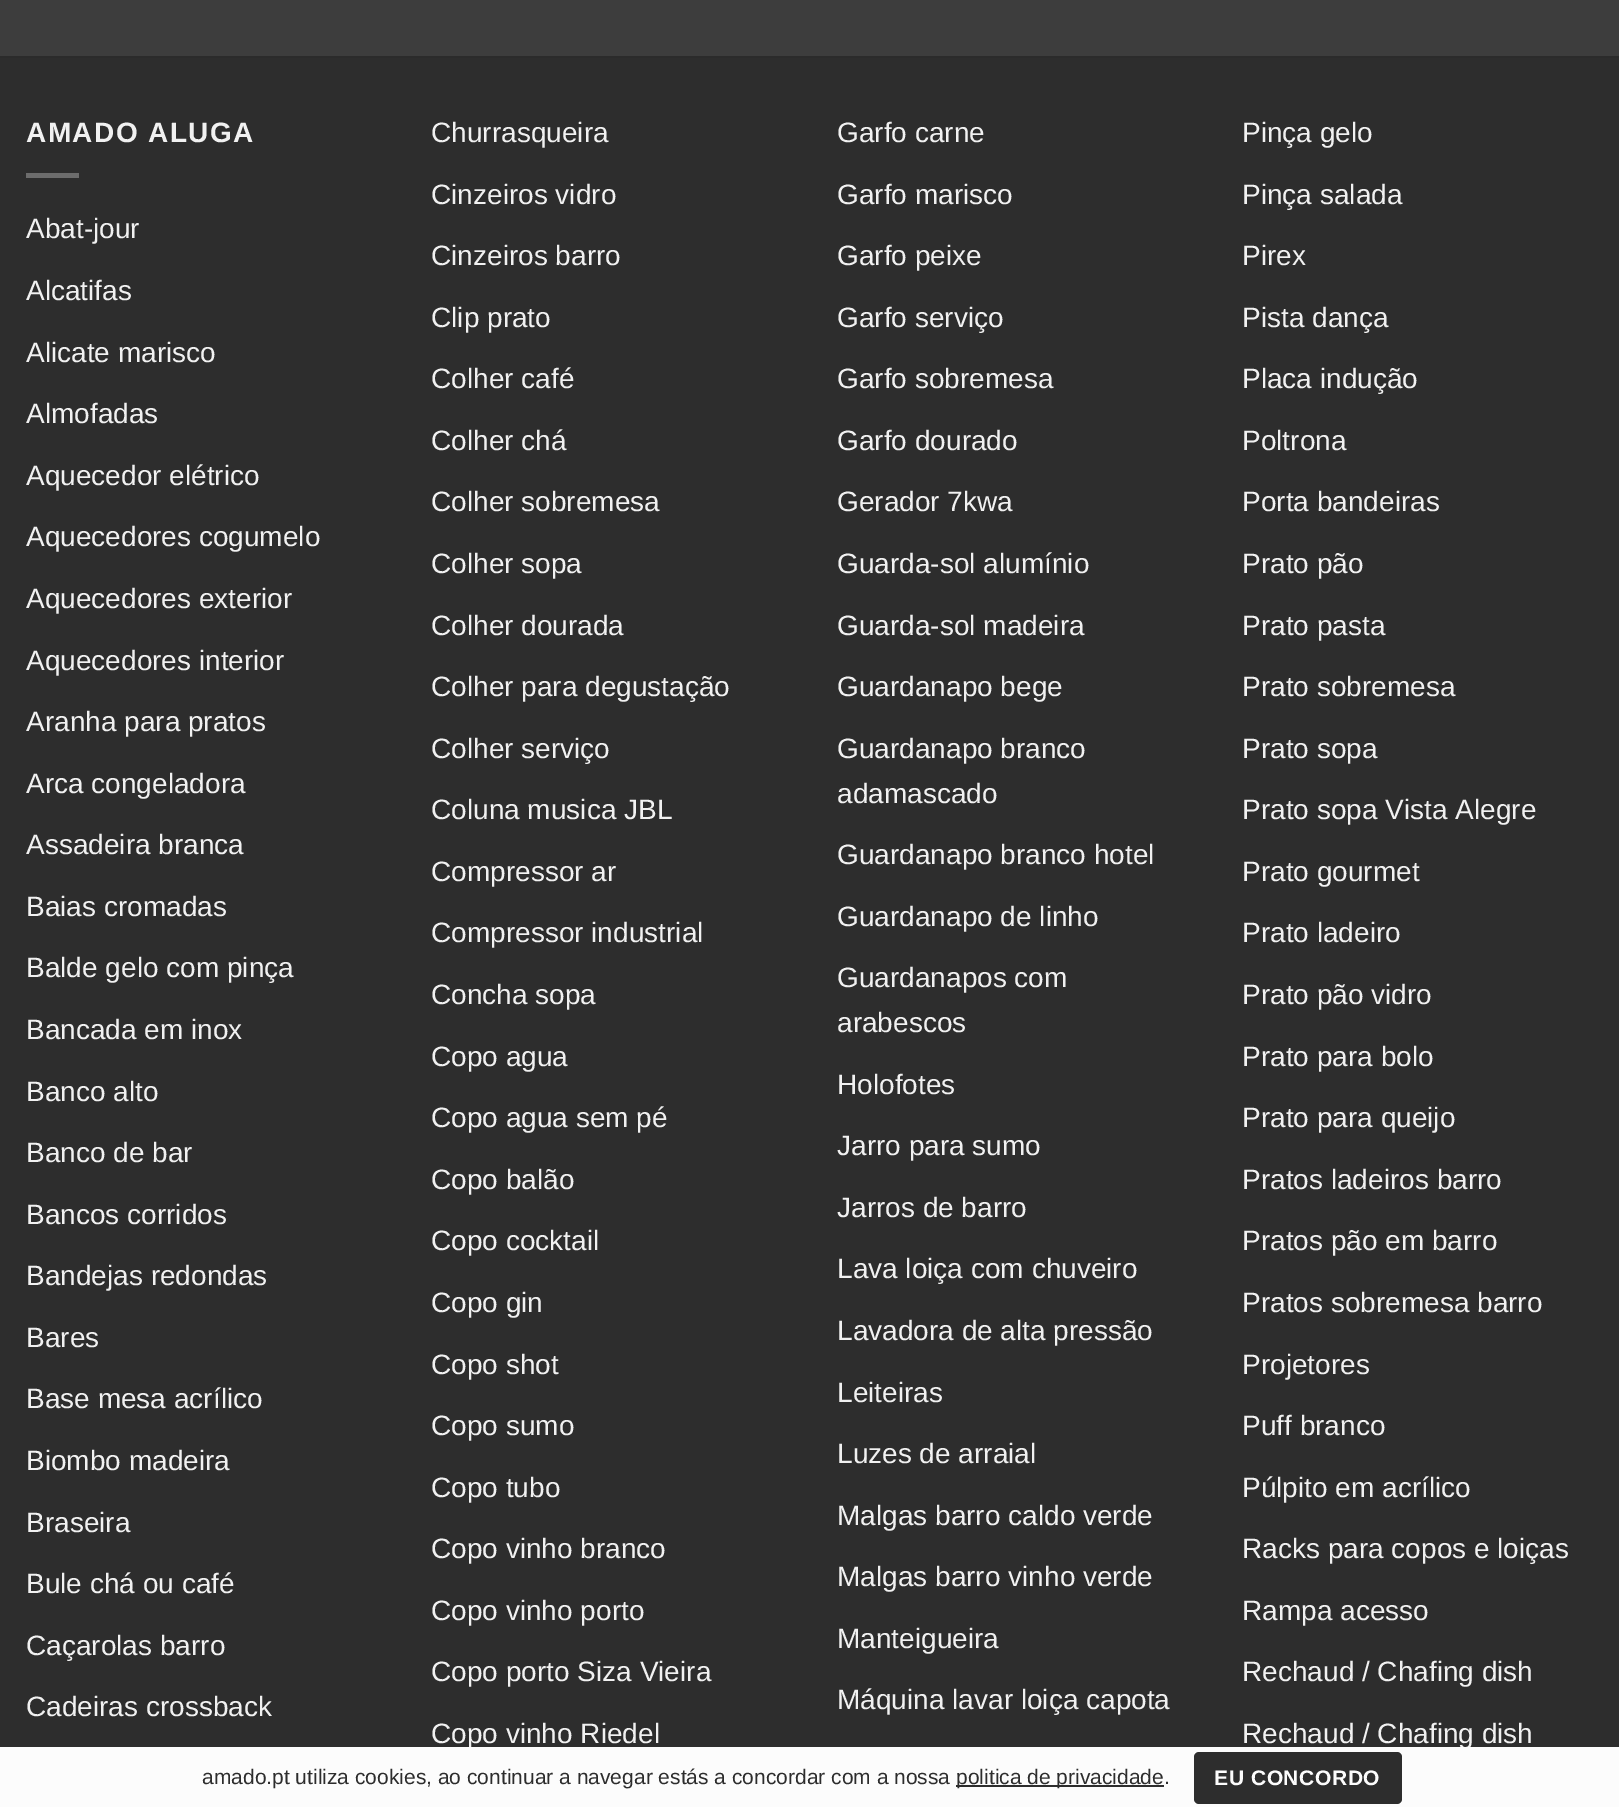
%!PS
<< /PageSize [1619 1807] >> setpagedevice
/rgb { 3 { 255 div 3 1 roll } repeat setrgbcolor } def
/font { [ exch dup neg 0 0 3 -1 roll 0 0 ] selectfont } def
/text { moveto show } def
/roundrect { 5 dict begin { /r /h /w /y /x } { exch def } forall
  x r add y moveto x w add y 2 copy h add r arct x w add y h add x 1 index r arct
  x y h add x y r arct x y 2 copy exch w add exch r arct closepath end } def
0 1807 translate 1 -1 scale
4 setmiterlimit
61 61 61 rgb
0 0 1619 1807 rectfill
45 45 45 rgb
0 58 1619 1689 rectfill
43 43 43 rgb
0 56 1619 2 rectfill
108 108 108 rgb
26 173 53 5 rectfill
/LiberationSans-Bold 28 font
241 241 241 rgb
26 142 moveto 1.4 0 (AMADO ALUGA) ashow
/LiberationSans-Regular 28 font
(Abat-jour) 26 238 text
(Alcatifas) 26 300 text
(Alicate marisco) 26 362 text
(Almofadas) 26 423 text
(Aquecedor elétrico) 26 485 text
(Aquecedores cogumelo) 26 546 text
(Aquecedores exterior) 26 608 text
(Aquecedores interior) 26 670 text
(Aranha para pratos) 26 731 text
(Arca congeladora) 26 793 text
(Assadeira branca) 26 854 text
(Baias cromadas) 26 916 text
(Balde gelo com pinça) 26 977 text
(Bancada em inox) 26 1039 text
(Banco alto) 26 1101 text
(Banco de bar) 26 1162 text
(Bancos corridos) 26 1224 text
(Bandejas redondas) 26 1285 text
(Bares) 26 1347 text
(Base mesa acrílico) 26 1408 text
(Biombo madeira) 26 1470 text
(Braseira) 26 1532 text
(Bule chá ou café) 26 1593 text
(Caçarolas barro) 26 1655 text
(Cadeiras crossback) 26 1716 text
(Churrasqueira) 431 142 text
(Cinzeiros vidro) 431 204 text
(Cinzeiros barro) 431 265 text
(Clip prato) 431 327 text
(Colher café) 431 388 text
(Colher chá) 431 450 text
(Colher sobremesa) 431 511 text
(Colher sopa) 431 573 text
(Colher dourada) 431 635 text
(Colher para degustação) 431 696 text
(Colher serviço) 431 758 text
(Coluna musica JBL) 431 819 text
(Compressor ar) 431 881 text
(Compressor industrial) 431 942 text
(Concha sopa) 431 1004 text
(Copo agua) 431 1066 text
(Copo agua sem pé) 431 1127 text
(Copo balão) 431 1189 text
(Copo cocktail) 431 1250 text
(Copo gin) 431 1312 text
(Copo shot) 431 1374 text
(Copo sumo) 431 1435 text
(Copo tubo) 431 1497 text
(Copo vinho branco) 431 1558 text
(Copo vinho porto) 431 1620 text
(Copo porto Siza Vieira) 431 1681 text
(Copo vinho Riedel) 431 1743 text
(Garfo carne) 837 142 text
(Garfo marisco) 837 204 text
(Garfo peixe) 837 265 text
(Garfo serviço) 837 327 text
(Garfo sobremesa) 837 388 text
(Garfo dourado) 837 450 text
(Gerador 7kwa) 837 511 text
(Guarda-sol alumínio) 837 573 text
(Guarda-sol madeira) 837 635 text
(Guardanapo bege) 837 696 text
(Guardanapo branco) 837 758 text
(adamascado) 837 803 text
(Guardanapo branco hotel) 837 864 text
(Guardanapo de linho) 837 926 text
(Guardanapos com) 837 987 text
(arabescos) 837 1032 text
(Holofotes) 837 1094 text
(Jarro para sumo) 837 1155 text
(Jarros de barro) 837 1217 text
(Lava loiça com chuveiro) 837 1278 text
(Lavadora de alta pressão) 837 1340 text
(Leiteiras) 837 1402 text
(Luzes de arraial) 837 1463 text
(Malgas barro caldo verde) 837 1525 text
(Malgas barro vinho verde) 837 1586 text
(Manteigueira) 837 1648 text
(Máquina lavar loiça capota) 837 1709 text
(Pinça gelo) 1242 142 text
(Pinça salada) 1242 204 text
(Pirex) 1242 265 text
(Pista dança) 1242 327 text
(Placa indução) 1242 388 text
(Poltrona) 1242 450 text
(Porta bandeiras) 1242 511 text
(Prato pão) 1242 573 text
(Prato pasta) 1242 635 text
(Prato sobremesa) 1242 696 text
(Prato sopa) 1242 758 text
(Prato sopa Vista Alegre) 1242 819 text
(Prato gourmet) 1242 881 text
(Prato ladeiro) 1242 942 text
(Prato pão vidro) 1242 1004 text
(Prato para bolo) 1242 1066 text
(Prato para queijo) 1242 1127 text
(Pratos ladeiros barro) 1242 1189 text
(Pratos pão em barro) 1242 1250 text
(Pratos sobremesa barro) 1242 1312 text
(Projetores) 1242 1374 text
(Puff branco) 1242 1435 text
(Púlpito em acrílico) 1242 1497 text
(Racks para copos e loiças) 1242 1558 text
(Rampa acesso) 1242 1620 text
(Rechaud / Chafing dish) 1242 1681 text
(Rechaud / Chafing dish) 1242 1743 text
252 252 252 rgb
0 1747 1619 60 rectfill
/LiberationSans-Regular 21 font
45 45 45 rgb
(amado.pt utiliza cookies, ao continuar a navegar estás a concordar com a nossa) 202 1784 text
956 1785 208 2 rectfill
(politica de privacidade.) 956 1784 text
1194 1752 208 52 5 roundrect fill
/LiberationSans-Bold 21 font
252 252 252 rgb
1214 1785 moveto 0.6 0 (EU CONCORDO) ashow
showpage
